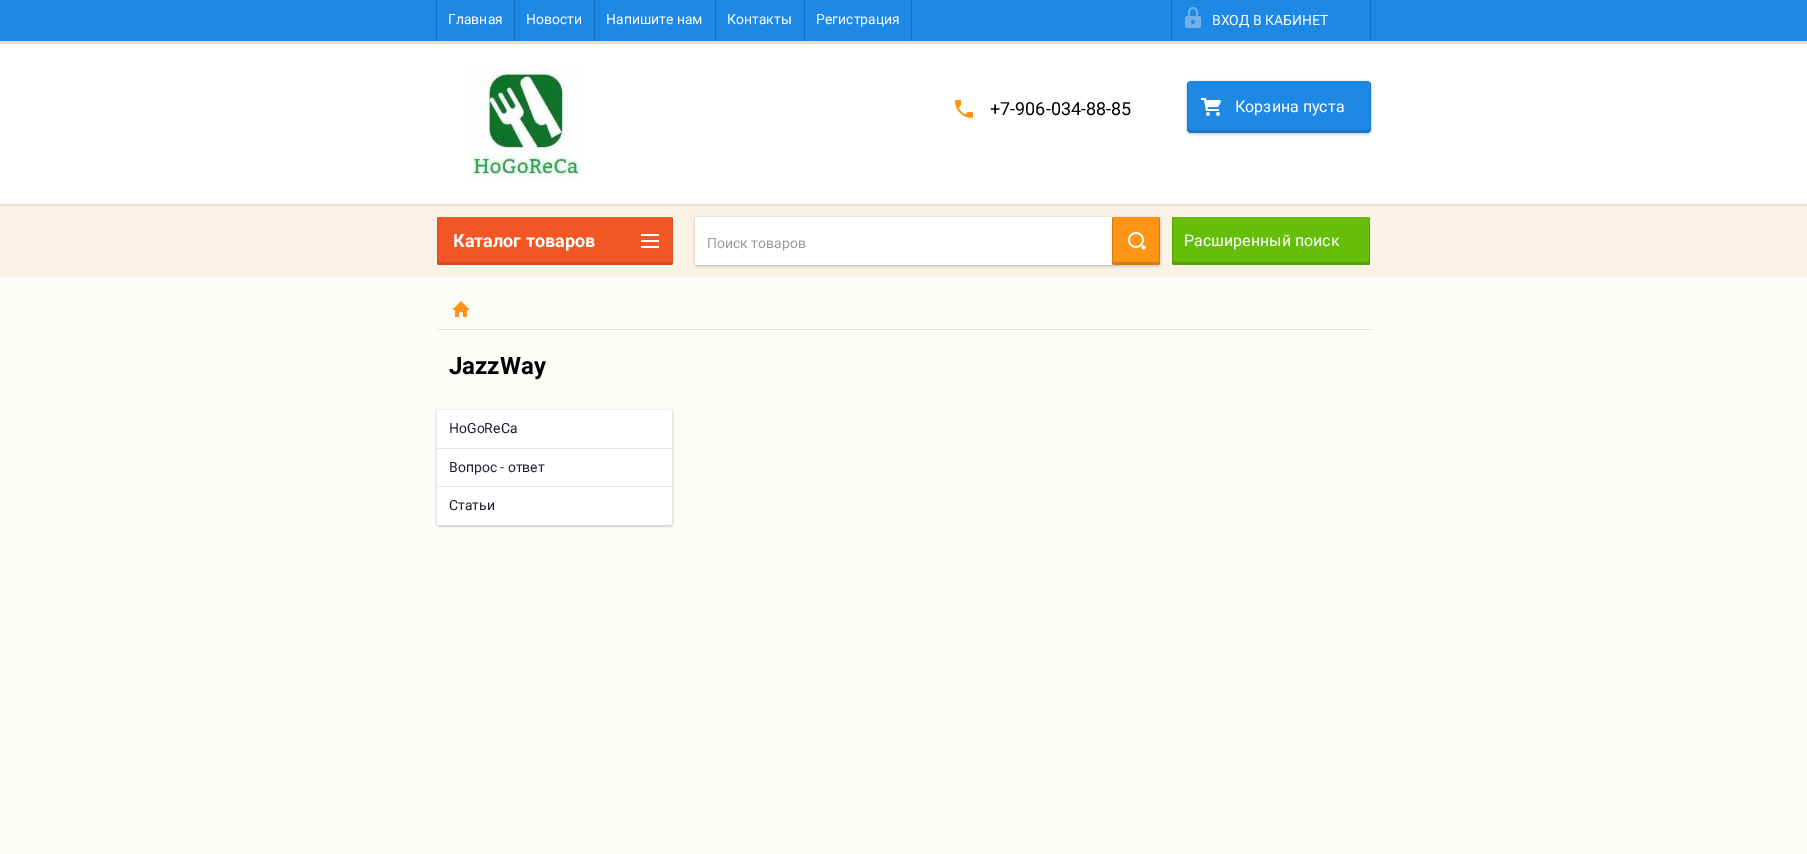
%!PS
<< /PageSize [1807 854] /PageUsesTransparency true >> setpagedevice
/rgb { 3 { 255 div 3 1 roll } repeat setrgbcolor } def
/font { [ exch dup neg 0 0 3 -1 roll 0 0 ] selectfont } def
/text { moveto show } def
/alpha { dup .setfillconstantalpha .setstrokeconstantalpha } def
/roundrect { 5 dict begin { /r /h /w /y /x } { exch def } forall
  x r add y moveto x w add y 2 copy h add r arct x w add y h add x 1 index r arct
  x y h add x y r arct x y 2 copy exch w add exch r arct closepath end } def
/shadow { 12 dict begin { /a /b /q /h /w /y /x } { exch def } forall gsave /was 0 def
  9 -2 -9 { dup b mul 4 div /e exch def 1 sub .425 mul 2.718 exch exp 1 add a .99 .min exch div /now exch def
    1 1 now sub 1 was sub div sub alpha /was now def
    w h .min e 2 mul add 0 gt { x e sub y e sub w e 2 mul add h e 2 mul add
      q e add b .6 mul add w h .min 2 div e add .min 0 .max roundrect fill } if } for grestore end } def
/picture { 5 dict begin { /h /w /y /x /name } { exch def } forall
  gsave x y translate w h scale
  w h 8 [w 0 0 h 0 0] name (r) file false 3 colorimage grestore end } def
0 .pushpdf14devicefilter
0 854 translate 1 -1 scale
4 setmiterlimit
254 252 248 rgb
0 0 1807 854 rectfill
255 255 255 rgb
0 44 1807 160 rectfill
224 224 224 rgb
0 41 1807 3 rectfill
30 136 229 rgb
0 0 1807 41 rectfill
24 109 183 rgb
436 0 1 41 rectfill
514 0 1 41 rectfill
594 0 1 41 rectfill
715 0 1 41 rectfill
804 0 1 41 rectfill
911 0 1 41 rectfill
1171 0 1 40 rectfill
(img_01.rgb) 1185 7 16 21 picture
1370 0 1 40 rectfill
(img_02.rgb) 465 67 118 111 picture
(img_03.rgb) 955 100 18 18 picture
0 0 0 rgb
1187 82 184 52 4 1.5 0.24 shadow
30 136 229 rgb
1187 81 184 52 4 roundrect fill
0.14 alpha
0 0 0 rgb
1188 82 moveto -1 1 -1 2 -1 3 rcurveto 0 44 rlineto 0 2 2 4 4 4 rcurveto 176 0 rlineto 2 0 4 -2 4 -4 rcurveto 0 -44 rlineto 0 -1 0 -2 -1 -3 rcurveto 0 38 rlineto 0 2 2 10 -3 10 rcurveto -176 0 rlineto -5 0 -3 -8 -3 -10 rcurveto closepath fill
1 alpha
(img_04.rgb) 1201 98 20 18 picture
255 255 255 rgb
0 278 1807 1 rectfill
249 243 229 rgb
0 206 1807 72 rectfill
234 228 215 rgb
0 204 1807 2 rectfill
0 0 0 rgb
695 218 465 48 2 1.5 0.24 shadow
255 255 255 rgb
695 217 465 48 2 roundrect fill
255 147 20 rgb
1112 217 48 48 2 roundrect fill
0.16 alpha
0 0 0 rgb
1113 217 moveto -1 1 -1 1 -1 2 rcurveto 0 44 rlineto 0 1 1 2 2 2 rcurveto 44 0 rlineto 1 0 2 -1 2 -2 rcurveto 0 -44 rlineto 0 -1 0 -1 -1 -2 rcurveto 0 44 rlineto 0 1 0 1 -1 1 rcurveto -44 0 rlineto -1 0 -1 0 -1 -1 rcurveto closepath fill
1 alpha
(img_05.rgb) 1128 232 18 18 picture
103 190 10 rgb
1172 217 198 48 2 roundrect fill
0.16 alpha
0 0 0 rgb
1173 217 moveto -1 1 -1 1 -1 2 rcurveto 0 44 rlineto 0 1 1 2 2 2 rcurveto 194 0 rlineto 1 0 2 -1 2 -2 rcurveto 0 -44 rlineto 0 -1 0 -1 -1 -2 rcurveto 0 44 rlineto 0 1 0 1 -1 1 rcurveto -194 0 rlineto -1 0 -1 0 -1 -1 rcurveto closepath fill
1 alpha
225 226 227 rgb
437 329 935 1 rectfill
(img_06.rgb) 452 301 18 16 picture
242 86 37 rgb
437 217 236 48 2 roundrect fill
0.11 alpha
0 0 0 rgb
438 217 moveto -1 1 -1 1 -1 2 rcurveto 0 44 rlineto 0 1 1 2 2 2 rcurveto 232 0 rlineto 1 0 2 -1 2 -2 rcurveto 0 -44 rlineto 0 -1 0 -1 -1 -2 rcurveto 0 44 rlineto 0 1 0 1 -1 1 rcurveto -232 0 rlineto -1 0 -1 0 -1 -1 rcurveto closepath fill
1 alpha
(img_07.rgb) 641 234 18 14 picture
437 411 235 115 2 1.5 0.24 shadow
255 255 255 rgb
437 410 235 115 2 roundrect fill
230 230 230 rgb
437 448 235 1 rectfill
437 486 235 1 rectfill
/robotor-Regular 14 font
255 255 255 rgb
(Главная) 448 24 text
(Новости) 526 24 text
(Напишите нам) 606 24 text
(Контакты) 727 24 text
(Регистрация) 816 24 text
(ВХОД В КАБИНЕТ) 1212 25 text
/robotor-Regular 18 font
0 0 0 rgb
(+7-906-034-88-85) 990 115 text
/robotor-Regular 16 font
255 255 255 rgb
(Корзина пуста) 1235 112 text
/robotor-Regular 14 font
153 153 153 rgb
(Поиск товаров) 707 248 text
/robotor-Regular 16 font
255 255 255 rgb
(Расширенный поиск) 1184 246 text
/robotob-Bold 24 font
0 0 0 rgb
(JazzWay) 449 374 text
/robotob-Bold 18 font
255 255 255 rgb
(Каталог товаров) 453 247 text
/robotor-Regular 14 font
32 32 42 rgb
(HoGoReCa) 449 433 text
(Вопрос - ответ) 449 472 text
(Статьи) 449 510 text
.poppdf14devicefilter showpage
